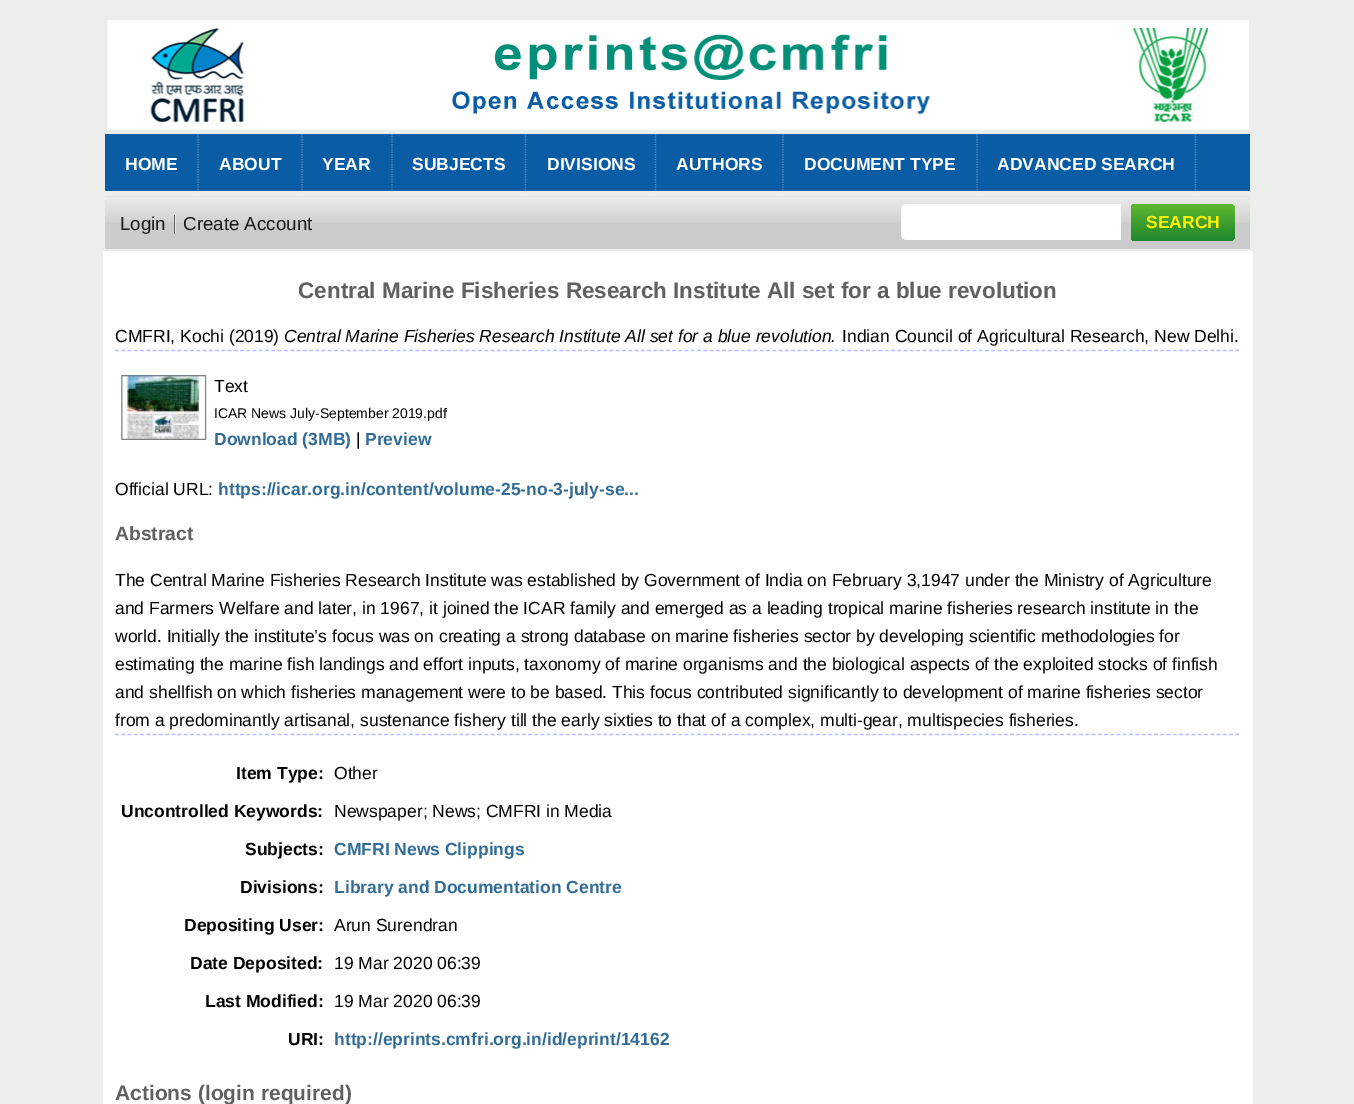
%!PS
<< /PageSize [1354 1104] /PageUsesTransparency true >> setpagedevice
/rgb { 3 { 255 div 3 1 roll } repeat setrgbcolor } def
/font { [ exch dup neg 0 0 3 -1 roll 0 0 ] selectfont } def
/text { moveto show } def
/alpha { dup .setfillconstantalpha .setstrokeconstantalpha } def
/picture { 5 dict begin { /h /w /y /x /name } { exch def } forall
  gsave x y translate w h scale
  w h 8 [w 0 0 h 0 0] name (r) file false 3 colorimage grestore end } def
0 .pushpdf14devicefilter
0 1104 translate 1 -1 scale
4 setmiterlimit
236 238 235 rgb
0 0 1354 1104 rectfill
(img_01.rgb) 107 20 1142 110 picture
10 93 165 rgb
105 134 1145 57 rectfill
0.3 alpha
255 255 255 rgb
1.2 setlinewidth
[1.25 1.25] 0 setdash
198 134 moveto 0 60 rlineto stroke
302 134 moveto 0 60 rlineto stroke
392 134 moveto 0 60 rlineto stroke
525.5 134 moveto 0 60 rlineto stroke
655.5 134 moveto 0 60 rlineto stroke
783 134 moveto 0 60 rlineto stroke
977 134 moveto 0 60 rlineto stroke
1195.5 134 moveto 0 60 rlineto stroke
1 alpha
204 204 204 rgb
105 196 1145 53 rectfill
(img_02.rgb) 105 196 1145 27 picture
96 96 96 rgb
174 215 1 19 rectfill
232 232 232 rgb
175 215 1 19 rectfill
255 255 255 rgb
907 204 moveto 214 0 rlineto 0 36 rlineto -214 0 rlineto -3.5 0 -6 -2.5 -6 -6 rcurveto 0 -24 rlineto 0 -3.5 2.5 -6 6 -6 rcurveto closepath fill
gsave 1135 204 moveto 94 0 rlineto 3.5 0 6 2.5 6 6 rcurveto 0 25 rlineto 0 3.5 -2.5 6 -6 6 rcurveto -94 0 rlineto -2 0 -4 -2 -4 -4 rcurveto 0 -29 rlineto 0 -2 2 -4 4 -4 rcurveto closepath clip newpath
<< /ShadingType 2 /ColorSpace /DeviceRGB /Coords [1131 204 1131 241] /Extend [true true] /Function << /FunctionType 2 /Domain [0 1] /C0 [0.369 0.722 0.188] /C1 [0.122 0.529 0.18] /N 1 >> >> shfill grestore
103 251 1150 853 rectfill
187 187 255 rgb
[3.75 2.51] 0 setdash
115 350.5 moveto 1125 0 rlineto stroke
(img_03.rgb) 121 375 86 65 picture
115 734.5 moveto 1125 0 rlineto stroke
/LiberationSans-Bold 17.5 font
255 255 255 rgb
(HOME) 125 170 text
(ABOUT) 219 170 text
(YEAR) 322 170 text
(SUBJECTS) 412 170 text
(DIVISIONS) 547 170 text
(AUTHORS) 676 170 text
(DOCUMENT TYPE) 804 170 text
(ADVANCED SEARCH) 997 170 text
/LiberationSans-Regular 18.75 font
28 28 28 rgb
(Login) 120 230 text
(Create Account) 183 230 text
/LiberationSans-Bold 17.5 font
255 241 0 rgb
(SEARCH) 1146 228 text
/LiberationSans-Bold 22.5 font
96 96 96 rgb
(Central Marine Fisheries Research Institute All set for a blue revolution) 298 298 text
/LiberationSans-Regular 17.5 font
0 0 0 rgb
(CMFRI, Kochi \(2019\)) 115 342 text
/LiberationSans-Italic 17.5 font
(Central Marine Fisheries Research Institute All set for a blue revolution.) 284 342 text
/LiberationSans-Regular 17.5 font
(Indian Council of Agricultural Research, New Delhi.) 842 342 text
(Text) 214 392 text
/LiberationSans-Regular 14 font
(ICAR News July-September 2019.pdf) 214 418 text
/LiberationSans-Bold 17.5 font
49 108 150 rgb
(Download \(3MB\)) 214 445 text
/LiberationSans-Regular 17.5 font
0 0 0 rgb
(|) 356 445 text
/LiberationSans-Bold 17.5 font
49 108 150 rgb
(Preview) 365 445 text
/LiberationSans-Regular 17.5 font
0 0 0 rgb
(Official URL:) 115 495 text
/LiberationSans-Bold 17.5 font
49 108 150 rgb
(https://icar.org.in/content/volume-25-no-3-july-se...) 218 495 text
/LiberationSans-Bold 19.25 font
96 96 96 rgb
(Abstract) 115 540 text
/LiberationSans-Regular 17.5 font
0 0 0 rgb
(The Central Marine Fisheries Research Institute was established by Government of India on February 3,1947 under the Ministry of Agriculture) 115 586 text
(and Farmers Welfare and later, in 1967, it joined the ICAR family and emerged as a leading tropical marine fisheries research institute in the) 115 614 text
(world. Initially the institute’s focus was on creating a strong database on marine fisheries sector by developing scientific methodologies for) 115 642 text
(estimating the marine fish landings and effort inputs, taxonomy of marine organisms and the biological aspects of the exploited stocks of finfish) 115 670 text
(and shellfish on which fisheries management were to be based. This focus contributed significantly to development of marine fisheries sector) 115 698 text
(from a predominantly artisanal, sustenance fishery till the early sixties to that of a complex, multi-gear, multispecies fisheries.) 115 726 text
/LiberationSans-Bold 17.5 font
(Item Type:) 236 779 text
/LiberationSans-Regular 17.5 font
(Other) 334 779 text
/LiberationSans-Bold 17.5 font
(Uncontrolled Keywords:) 121 817 text
/LiberationSans-Regular 17.5 font
(Newspaper; News; CMFRI in Media) 334 817 text
/LiberationSans-Bold 17.5 font
(Subjects:) 245 855 text
49 108 150 rgb
(CMFRI News Clippings) 334 855 text
0 0 0 rgb
(Divisions:) 240 893 text
49 108 150 rgb
(Library and Documentation Centre) 334 893 text
0 0 0 rgb
(Depositing User:) 184 931 text
/LiberationSans-Regular 17.5 font
(Arun Surendran) 334 931 text
/LiberationSans-Bold 17.5 font
(Date Deposited:) 190 969 text
/LiberationSans-Regular 17.5 font
(19 Mar 2020 06:39) 334 969 text
/LiberationSans-Bold 17.5 font
(Last Modified:) 205 1007 text
/LiberationSans-Regular 17.5 font
(19 Mar 2020 06:39) 334 1007 text
/LiberationSans-Bold 17.5 font
(URI:) 288 1045 text
49 108 150 rgb
(http://eprints.cmfri.org.in/id/eprint/14162) 334 1045 text
/LiberationSans-Bold 21 font
96 96 96 rgb
(Actions \(login required\)) 115 1100 text
.poppdf14devicefilter showpage
